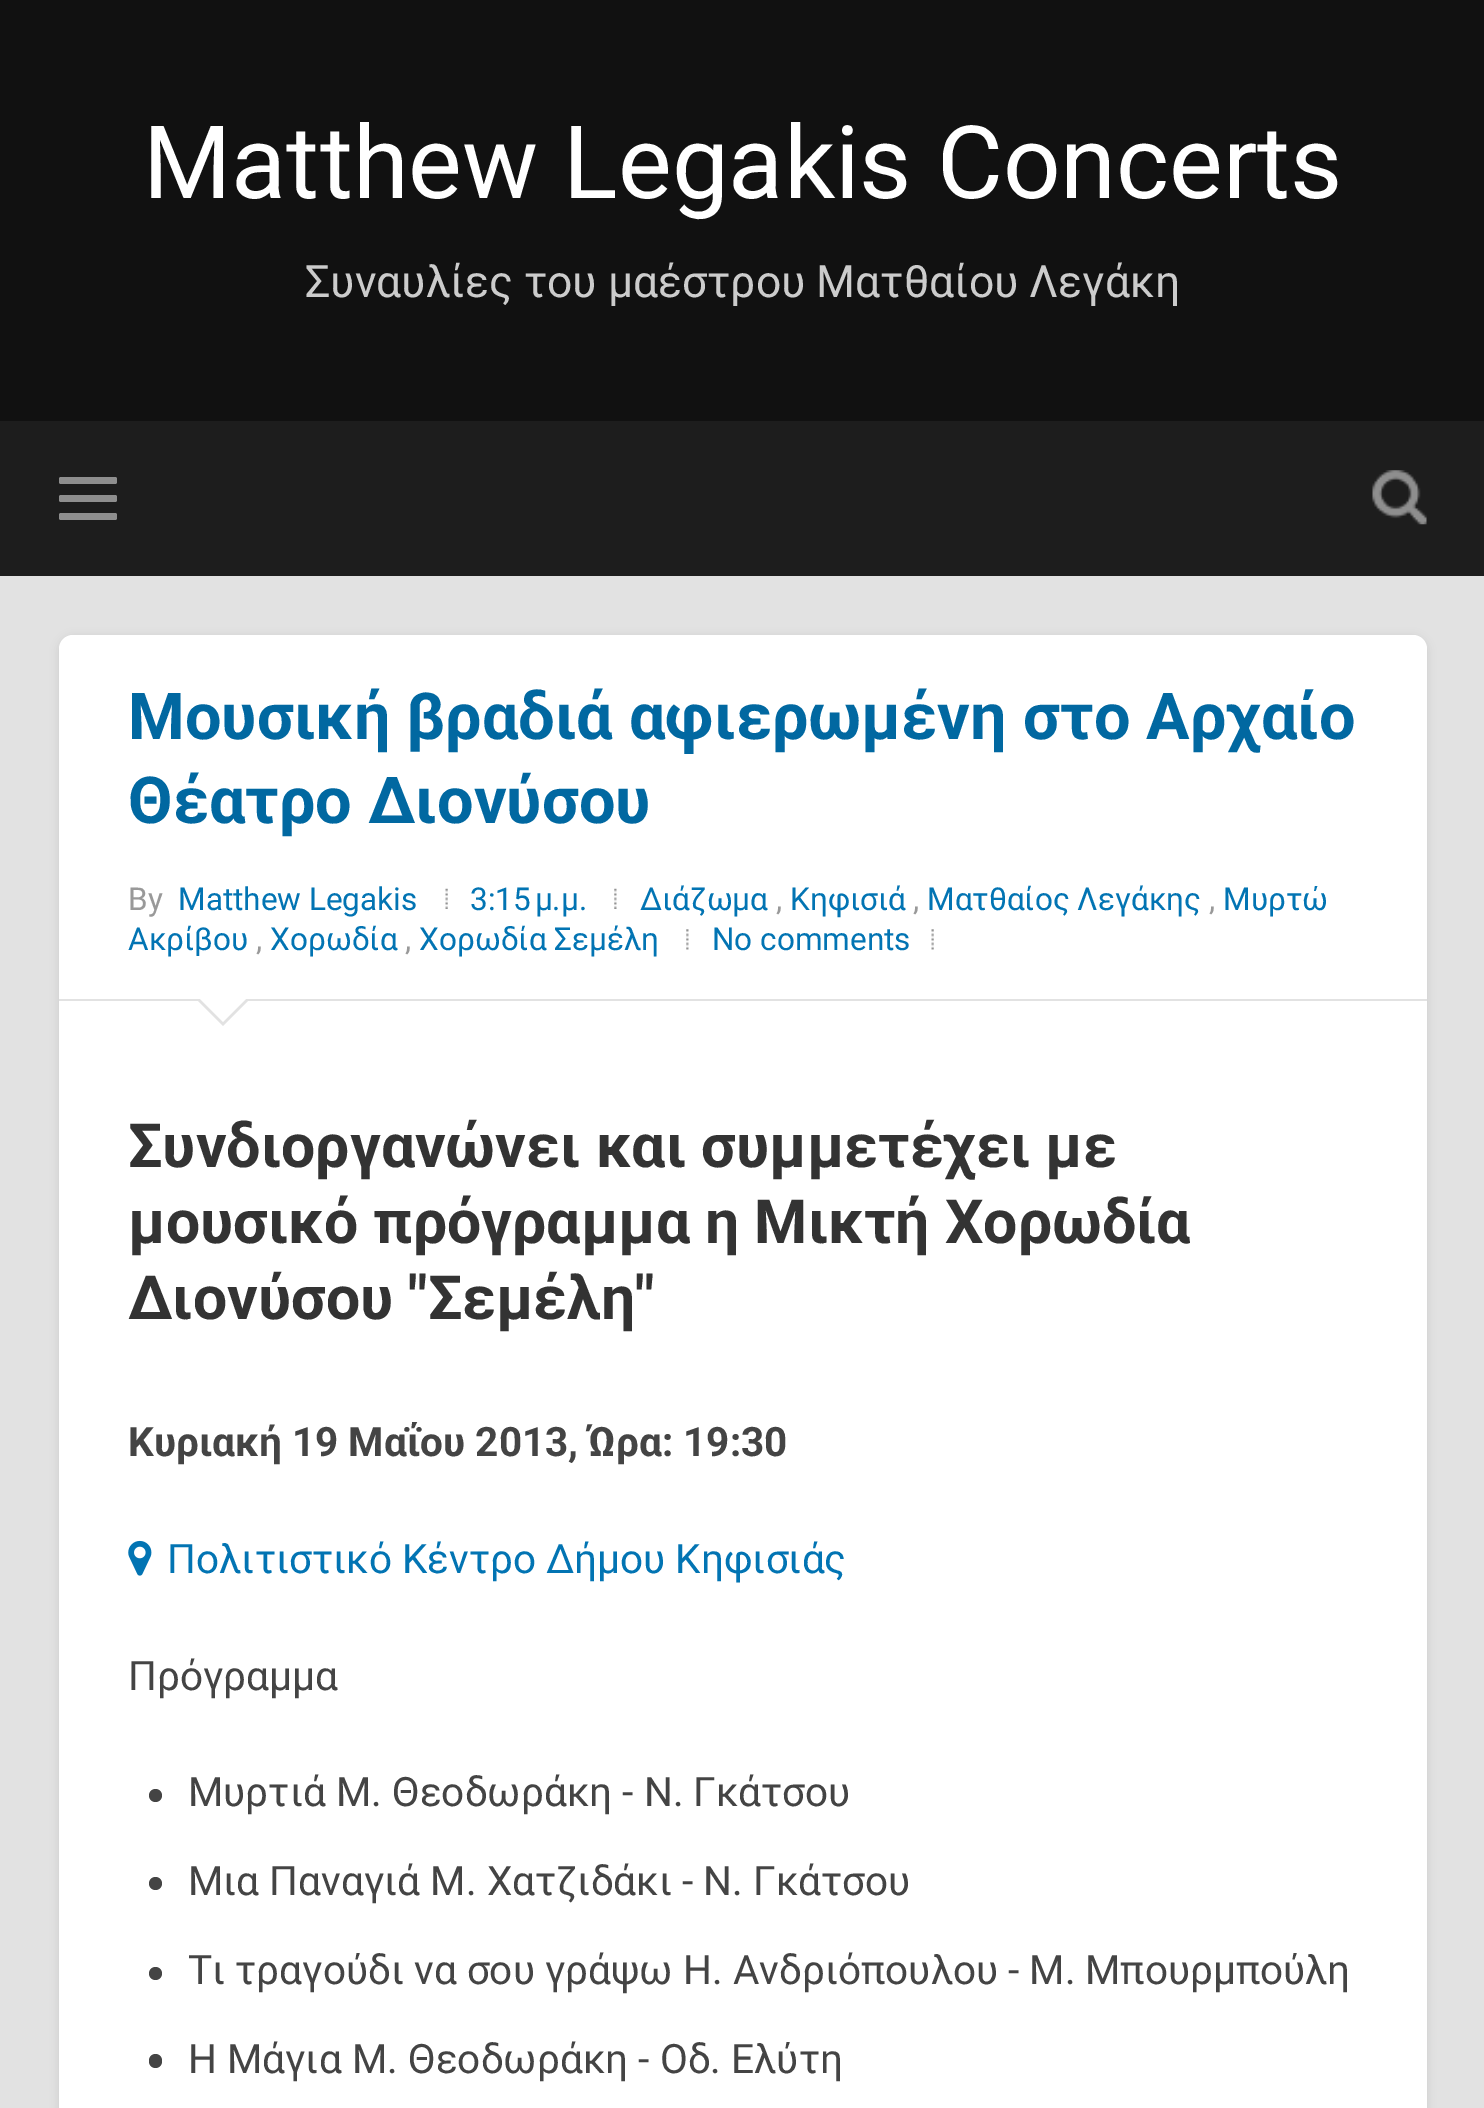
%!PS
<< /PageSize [1484 2108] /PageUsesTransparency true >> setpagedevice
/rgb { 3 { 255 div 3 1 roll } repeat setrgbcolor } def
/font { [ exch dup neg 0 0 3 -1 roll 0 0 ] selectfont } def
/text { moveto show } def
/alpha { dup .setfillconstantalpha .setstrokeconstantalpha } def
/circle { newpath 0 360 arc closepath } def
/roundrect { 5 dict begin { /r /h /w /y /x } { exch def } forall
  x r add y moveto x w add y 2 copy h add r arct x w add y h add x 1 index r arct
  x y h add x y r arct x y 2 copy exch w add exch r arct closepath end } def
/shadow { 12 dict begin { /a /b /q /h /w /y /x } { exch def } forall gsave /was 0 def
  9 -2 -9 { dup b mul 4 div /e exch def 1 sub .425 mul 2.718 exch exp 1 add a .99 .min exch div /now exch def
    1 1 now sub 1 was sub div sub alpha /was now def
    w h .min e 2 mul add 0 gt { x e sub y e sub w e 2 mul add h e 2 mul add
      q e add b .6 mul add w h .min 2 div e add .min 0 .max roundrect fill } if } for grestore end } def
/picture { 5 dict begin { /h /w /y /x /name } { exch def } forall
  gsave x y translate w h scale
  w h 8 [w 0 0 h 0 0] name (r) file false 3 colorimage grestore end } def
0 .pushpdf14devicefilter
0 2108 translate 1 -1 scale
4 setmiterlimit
226 226 226 rgb
0 0 1484 2108 rectfill
17 17 17 rgb
0 0 1484 421 rectfill
29 29 29 rgb
0 421 1484 155 rectfill
142 142 142 rgb
59 477 58 7 2 roundrect fill
59 495 58 7 2 roundrect fill
59 513 58 7 2 roundrect fill
(img_01.rgb) 1372 470 55 55 picture
0 0 0 rgb
59 637 1368 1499 14 4.5 0.1 shadow
255 255 255 rgb
59 635 1368 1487 14 roundrect fill
226 226 226 rgb
59 999 1368 2 rectfill
(img_02.rgb) 445 888 3 21 picture
(img_03.rgb) 614 888 3 21 picture
(img_04.rgb) 686 929 3 21 picture
(img_05.rgb) 931 929 3 21 picture
196 999 moveto 54 0 rlineto -27 27 rlineto closepath fill
255 255 255 rgb
198 997 moveto 50 0 rlineto -25 25 rlineto closepath fill
(img_06.rgb) 128 1540 24 36 picture
68 68 68 rgb
155.5 1795.5 6.5 circle fill
155.5 1883.5 6.5 circle fill
155.5 1973.5 6.5 circle fill
149 2054 13 14 6.5 roundrect fill
/Roboto-Regular 101.25 font
255 255 255 rgb
(Matthew Legakis Concerts) 143 198 text
/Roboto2-Regular 44.5 font
204 204 204 rgb
(Συναυλίες του μαέστρου Ματθαίου Λεγάκη) 305 297 text
/Roboto-Bold 64.75 font
1 104 161 rgb
(Μουσική βραδιά αφιερωμένη στο Αρχαίο) 128 739 text
(Θέατρο Διονύσου) 128 823 text
/Roboto-Regular 31.5 font
153 153 153 rgb
(By) 128 910 text
2 116 179 rgb
(Matthew Legakis) 178 910 text
(3:15) 470 910 text
/Roboto2-Regular 31.5 font
(μ) 535 910 text
/Roboto-Regular 31.5 font
(.) 552 910 text
/Roboto2-Regular 31.5 font
(μ) 561 910 text
/Roboto-Regular 31.5 font
(.) 579 910 text
/Roboto2-Regular 31.5 font
(Διάζωμα) 640 910 text
/Roboto-Regular 31.5 font
153 153 153 rgb
(,) 776 910 text
/Roboto2-Regular 31.5 font
2 116 179 rgb
(Κηφισιά) 790 910 text
/Roboto-Regular 31.5 font
153 153 153 rgb
(,) 913 910 text
/Roboto2-Regular 31.5 font
2 116 179 rgb
(Ματθαίος Λεγάκης) 927 910 text
/Roboto-Regular 31.5 font
153 153 153 rgb
(,) 1209 910 text
/Roboto2-Regular 31.5 font
2 116 179 rgb
(Μυρτώ) 1223 910 text
(Ακρίβου) 128 950 text
/Roboto-Regular 31.5 font
153 153 153 rgb
(,) 256 950 text
/Roboto2-Regular 31.5 font
2 116 179 rgb
(Χορωδία) 270 950 text
/Roboto-Regular 31.5 font
153 153 153 rgb
(,) 405 950 text
/Roboto2-Regular 31.5 font
2 116 179 rgb
(Χορωδία Σεμέλη) 419 950 text
/Roboto-Regular 31.5 font
(No comments) 712 950 text
/Roboto-Bold 60.75 font
51 51 51 rgb
(Συνδιοργανώνει και συμμετέχει με) 128 1167 text
(μουσικό πρόγραμμα η Μικτή Χορωδία) 128 1243 text
(Διονύσου "Σεμέλη") 128 1319 text
/Roboto-Bold 40.5 font
68 68 68 rgb
(Κυριακή 19 Μαΐου 2013, Ώρα: 19:30) 128 1456 text
/Roboto2-Regular 40.5 font
2 116 179 rgb
(Πολιτιστικό Κέντρο Δήμου Κηφισιάς) 167 1573 text
68 68 68 rgb
(Πρόγραμμα) 128 1690 text
(Μυρτιά Μ) 188 1806 text
(Θεοδωράκη) 392 1806 text
/Roboto-Regular 40.5 font
(-) 622 1806 text
/Roboto2-Regular 40.5 font
(Ν) 644 1806 text
(Γκάτσου) 693 1806 text
/Roboto-Regular 40.5 font
(.) 371 1806 text
(.) 673 1806 text
/Roboto2-Regular 40.5 font
(Μια Παναγιά Μ) 188 1895 text
(Χατζιδάκι) 487 1895 text
/Roboto-Regular 40.5 font
(-) 682 1895 text
/Roboto2-Regular 40.5 font
(Ν) 703 1895 text
(Γκάτσου) 753 1895 text
/Roboto-Regular 40.5 font
(.) 466 1895 text
(.) 732 1895 text
/Roboto2-Regular 40.5 font
(Τι τραγούδι να σου γράψω Η) 188 1984 text
(Ανδριόπουλου) 733 1984 text
/Roboto-Regular 40.5 font
(-) 1008 1984 text
/Roboto2-Regular 40.5 font
(Μ) 1029 1984 text
(Μπουρμπούλη) 1085 1984 text
/Roboto-Regular 40.5 font
(.) 712 1984 text
(.) 1065 1984 text
/Roboto2-Regular 40.5 font
(Η Μάγια Μ) 188 2073 text
(Θεοδωράκη) 408 2073 text
/Roboto-Regular 40.5 font
(-) 638 2073 text
/Roboto2-Regular 40.5 font
(Οδ) 660 2073 text
(Ελύτη) 731 2073 text
/Roboto-Regular 40.5 font
(.) 387 2073 text
(.) 710 2073 text
.poppdf14devicefilter showpage
